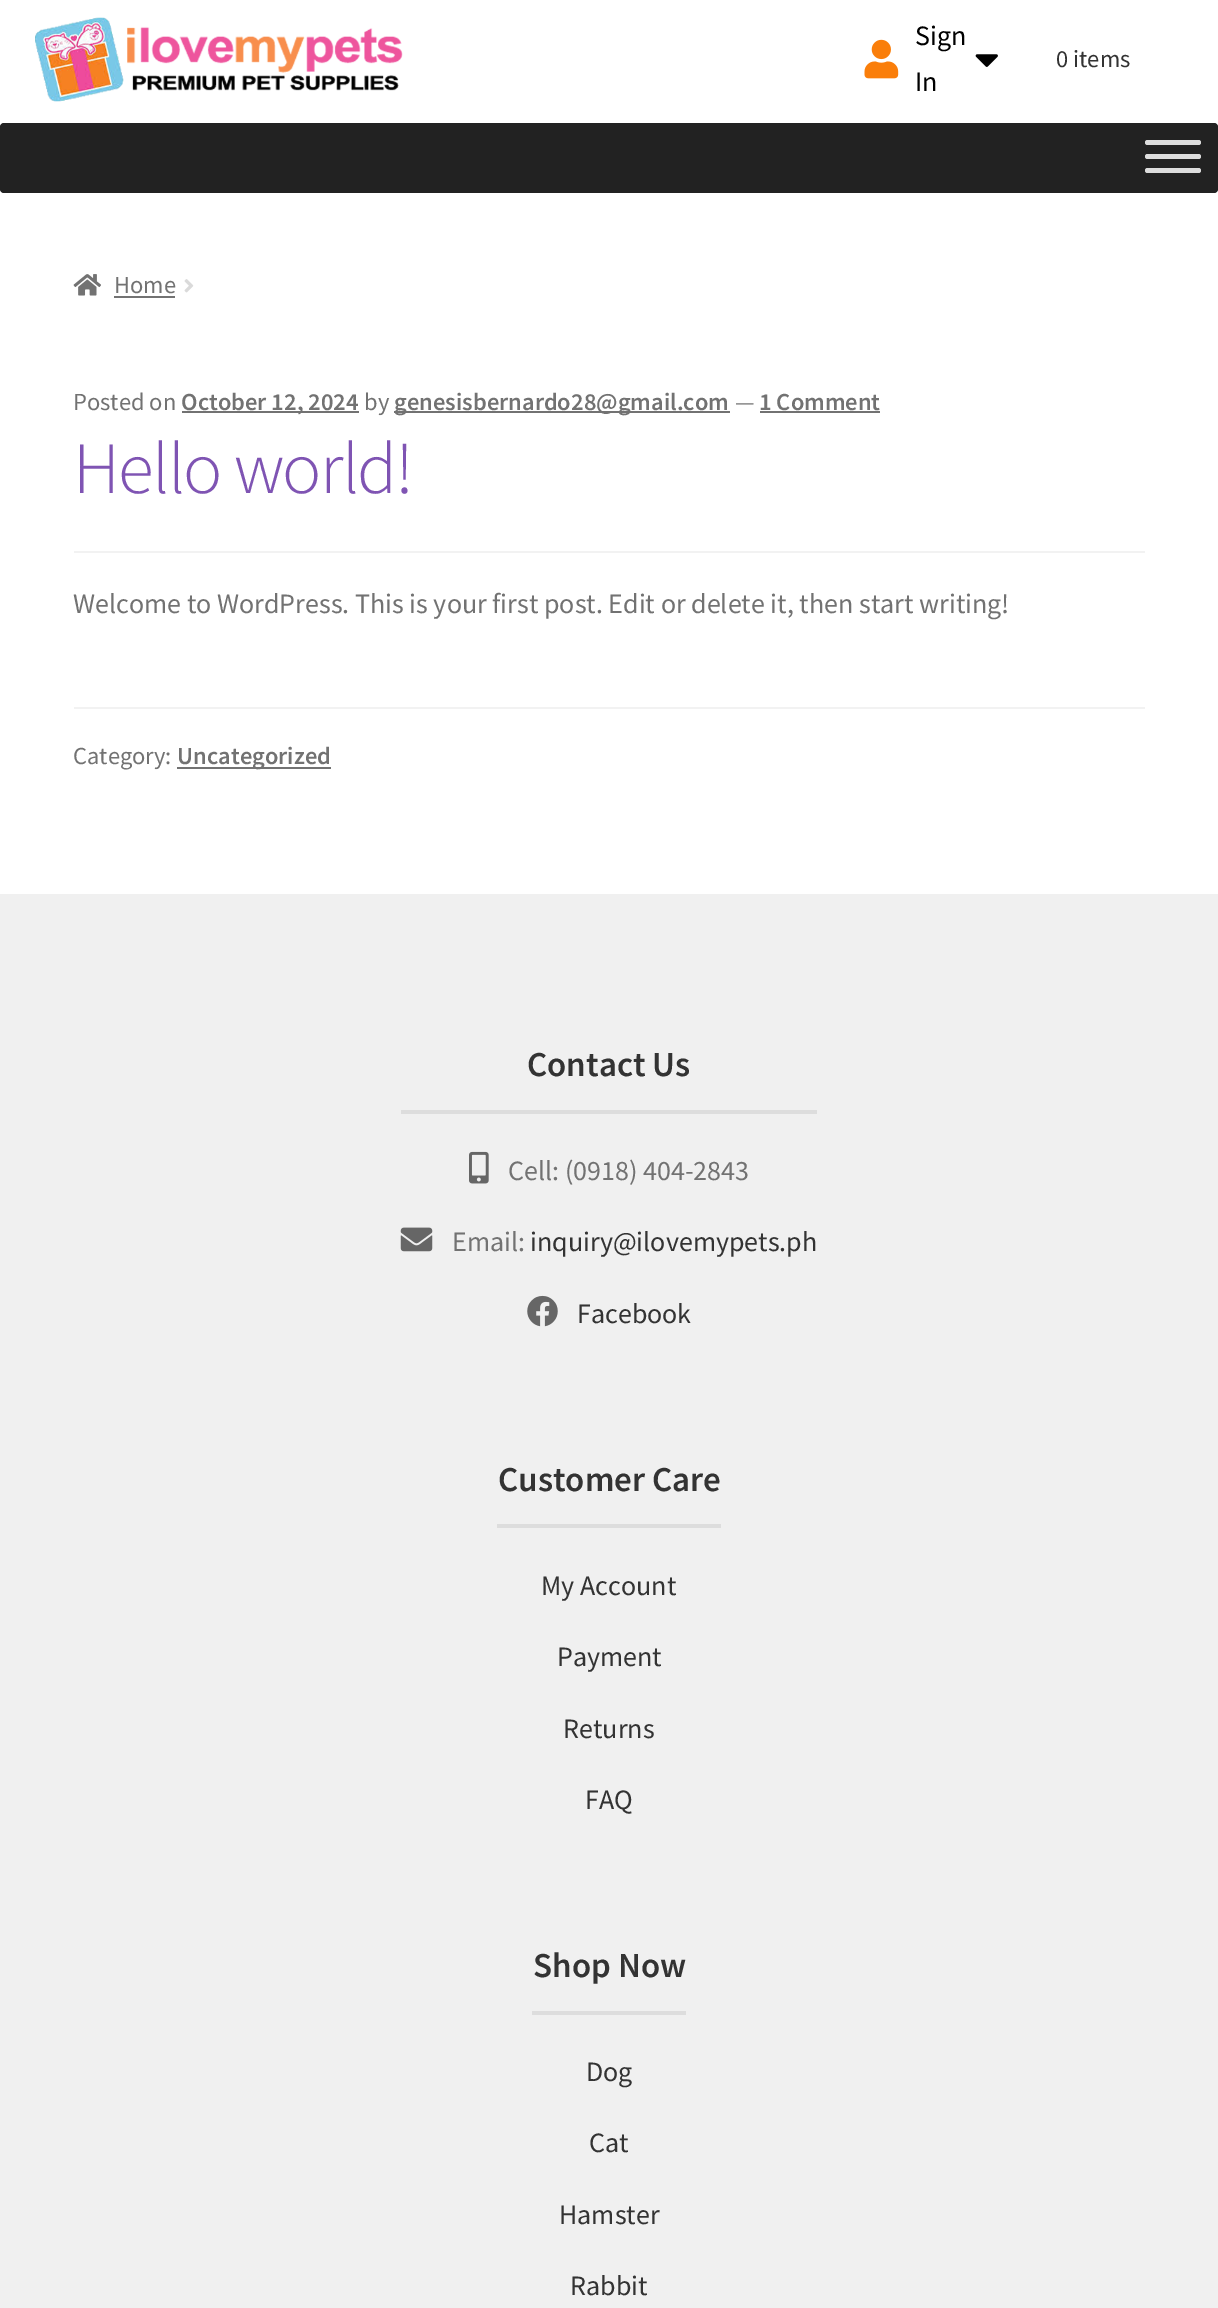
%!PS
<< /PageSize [1218 2308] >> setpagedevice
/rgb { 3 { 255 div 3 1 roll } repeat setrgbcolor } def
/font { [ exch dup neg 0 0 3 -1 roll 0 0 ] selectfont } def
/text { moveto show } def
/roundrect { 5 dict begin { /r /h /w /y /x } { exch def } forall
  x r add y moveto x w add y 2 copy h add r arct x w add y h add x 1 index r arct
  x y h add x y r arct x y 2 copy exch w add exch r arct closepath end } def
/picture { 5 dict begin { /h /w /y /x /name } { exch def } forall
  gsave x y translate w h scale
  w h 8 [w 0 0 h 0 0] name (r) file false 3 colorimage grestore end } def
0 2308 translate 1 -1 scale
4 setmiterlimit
255 255 255 rgb
0 0 1218 2308 rectfill
(img_01.rgb) 35 17 368 85 picture
(img_02.rgb) 864 39 35 40 picture
(img_03.rgb) 975 54 23 13 picture
34 34 34 rgb
0 123 1218 70 4 roundrect fill
221 221 221 rgb
1145 140 56 5 2.5 roundrect fill
1145 154 56 5 2.5 roundrect fill
1145 168 56 5 2.5 roundrect fill
(img_04.rgb) 73 274 28 22 picture
114 114 114 rgb
114 296 61 2 rectfill
(img_05.rgb) 184 279 10 14 picture
242 242 242 rgb
74 551 1071 2 rectfill
114 114 114 rgb
182 411 177 2 rectfill
394 411 336 2 rectfill
760 411 120 2 rectfill
242 242 242 rgb
74 707 1071 2 rectfill
114 114 114 rgb
177 767 154 2 rectfill
240 240 240 rgb
0 894 1218 1414 rectfill
221 221 221 rgb
401 1110 416 4 rectfill
(img_06.rgb) 469 1151 20 33 picture
(img_07.rgb) 400 1227 33 25 picture
(img_08.rgb) 527 1295 31 32 picture
497 1524 224 4 rectfill
532 2011 154 4 rectfill
/SourceSansPro-Regular 28 font
0 0 0 rgb
(Sign) 915 45 text
(In) 915 91 text
/SourceSansPro-Regular 24.5 font
51 51 51 rgb
(0 items) 1056 67 text
114 114 114 rgb
(Home) 114 293 text
(Posted on) 73 410 text
/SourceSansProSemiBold-SemiBold 24.5 font
(October 12, 2024) 181 410 text
/SourceSansPro-Regular 24.5 font
(by) 364 410 text
/SourceSansProSemiBold-SemiBold 24.5 font
(genesisbernardo28@gmail.com) 394 410 text
/SourceSansPro-Regular 24.5 font
(—) 735 410 text
/SourceSansProSemiBold-SemiBold 24.5 font
(1 Comment) 759 410 text
/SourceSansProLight-Light 73.5 font
127 84 179 rgb
73 493 moveto -1.75 0 (Hello world!) ashow
/SourceSansPro-Regular 28 font
114 114 114 rgb
(Welcome to WordPress. This is your first post. Edit or delete it, then start writing!) 73 613 text
/SourceSansPro-Regular 24.5 font
(Category:) 73 764 text
/SourceSansProSemiBold-SemiBold 24.5 font
(Uncategorized) 177 764 text
/SourceSansProSemiBold-SemiBold 35 font
51 51 51 rgb
(Contact Us) 527 1076 text
/SourceSansPro-Regular 28 font
114 114 114 rgb
(Cell: \(0918\) 404-2843) 508 1180 text
(Email:) 452 1251 text
51 51 51 rgb
(inquiry@ilovemypets.ph) 530 1251 text
(Facebook) 577 1323 text
/SourceSansProSemiBold-SemiBold 35 font
(Customer Care) 498 1491 text
/SourceSansPro-Regular 28 font
(My Account) 541 1595 text
(Payment) 557 1666 text
(Returns) 563 1738 text
(FAQ) 585 1809 text
/SourceSansProSemiBold-SemiBold 35 font
(Shop Now) 533 1977 text
/SourceSansPro-Regular 28 font
(Dog) 586 2081 text
(Cat) 589 2152 text
(Hamster) 559 2224 text
(Rabbit) 570 2295 text
showpage
